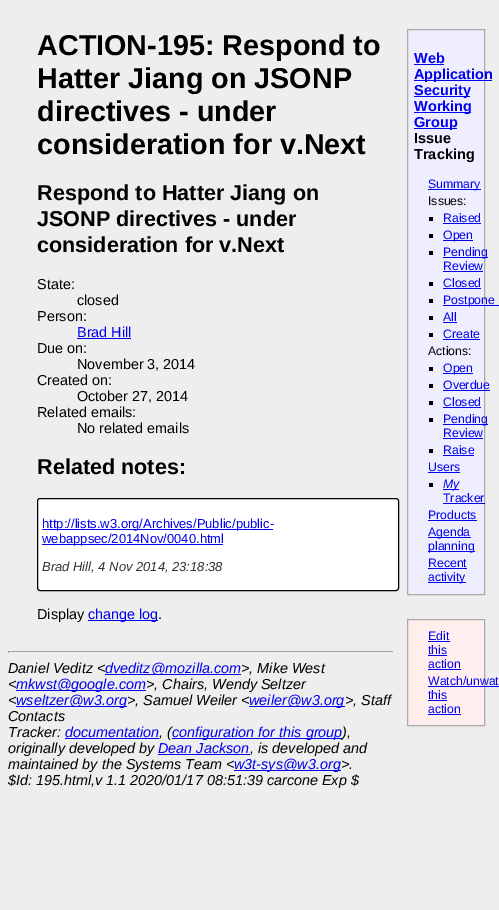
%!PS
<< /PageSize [499 910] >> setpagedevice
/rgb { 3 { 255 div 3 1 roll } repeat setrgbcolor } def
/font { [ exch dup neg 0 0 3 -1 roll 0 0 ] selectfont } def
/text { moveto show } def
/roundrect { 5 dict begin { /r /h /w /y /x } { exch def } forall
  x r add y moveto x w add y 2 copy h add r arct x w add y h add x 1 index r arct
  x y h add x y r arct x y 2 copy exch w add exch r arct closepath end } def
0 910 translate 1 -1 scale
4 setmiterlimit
238 238 238 rgb
0 0 499 910 rectfill
0 0 238 rgb
77 338 54 1 rectfill
255 255 255 rgb
37.5 498.5 361 92 2.5 roundrect gsave fill grestore
0 0 0 rgb
stroke
0 0 238 rgb
42 529 231 1 rectfill
42 544 181 1 rectfill
88 620 70 1 rectfill
238 238 255 rgb
407.5 29.5 moveto 77 0 rlineto 0 565 rlineto -77 0 rlineto closepath gsave fill grestore
170 170 170 rgb
stroke
0 0 238 rgb
414 64 30 1 rectfill
414 80 78 1 rectfill
414 96 56 1 rectfill
414 112 57 1 rectfill
414 128 43 1 rectfill
428 189 53 1 rectfill
0 0 0 rgb
429 217 4 4 rectfill
0 0 238 rgb
443 223 38 1 rectfill
0 0 0 rgb
429 234 4 4 rectfill
0 0 238 rgb
443 240 30 1 rectfill
0 0 0 rgb
429 251 4 4 rectfill
0 0 238 rgb
443 257 45 1 rectfill
443 271 40 1 rectfill
0 0 0 rgb
429 282 4 4 rectfill
0 0 238 rgb
443 288 38 1 rectfill
0 0 0 rgb
429 299 4 4 rectfill
0 0 238 rgb
443 305 56 1 rectfill
0 0 0 rgb
429 316 4 4 rectfill
0 0 238 rgb
443 322 14 1 rectfill
0 0 0 rgb
429 333 4 4 rectfill
0 0 238 rgb
443 339 37 1 rectfill
0 0 0 rgb
429 367 4 4 rectfill
0 0 238 rgb
443 373 30 1 rectfill
0 0 0 rgb
429 384 4 4 rectfill
0 0 238 rgb
443 390 47 1 rectfill
0 0 0 rgb
429 401 4 4 rectfill
0 0 238 rgb
443 407 38 1 rectfill
0 0 0 rgb
429 418 4 4 rectfill
0 0 238 rgb
443 424 45 1 rectfill
443 438 40 1 rectfill
0 0 0 rgb
429 449 4 4 rectfill
0 0 238 rgb
443 455 31 1 rectfill
428 472 32 1 rectfill
0 0 0 rgb
429 483 4 4 rectfill
0 0 238 rgb
443 489 16 1 rectfill
443 503 42 1 rectfill
428 520 49 1 rectfill
428 537 43 1 rectfill
428 551 47 1 rectfill
428 568 39 1 rectfill
428 582 38 1 rectfill
255 238 238 rgb
407.5 619.5 moveto 77 0 rlineto 0 106 rlineto -77 0 rlineto closepath gsave fill grestore
170 170 170 rgb
stroke
0 0 238 rgb
428 641 22 1 rectfill
428 655 19 1 rectfill
428 669 33 1 rectfill
428 686 71 1 rectfill
428 700 19 1 rectfill
428 714 33 1 rectfill
159 159 159 rgb
8 651 386 1 rectfill
238 238 238 rgb
393 651 1 2 rectfill
159 159 159 rgb
8 651 1 2 rectfill
0 0 238 rgb
105 674 136 1 rectfill
16 690 130 1 rectfill
16 706 111 1 rectfill
249 706 96 1 rectfill
65 738 94 1 rectfill
158 754 92 1 rectfill
234 770 107 1 rectfill
/LiberationSans-Bold 28.75 font
0 0 0 rgb
(ACTION-195: Respond to) 37 55 text
(Hatter Jiang on JSONP) 37 88 text
(directives - under) 37 121 text
(consideration for v.Next) 37 154 text
/LiberationSans-Bold 21.6 font
(Respond to Hatter Jiang on) 37 200 text
(JSONP directives - under) 37 226 text
(consideration for v.Next) 37 252 text
/LiberationSans-Regular 14.4 font
(State:) 37 289 text
(closed) 77 305 text
(Person:) 37 321 text
0 0 238 rgb
(Brad Hill) 77 337 text
0 0 0 rgb
(Due on:) 37 353 text
(November 3, 2014) 77 369 text
(Created on:) 37 385 text
(October 27, 2014) 77 401 text
(Related emails:) 37 417 text
(No related emails) 77 433 text
/LiberationSans-Bold 21.6 font
(Related notes:) 37 474 text
/LiberationSans-Regular 13 font
0 0 238 rgb
(http://lists.w3.org/Archives/Public/public-) 42 528 text
(webappsec/2014Nov/0040.html) 42 543 text
/LiberationSans-Italic 13 font
51 51 51 rgb
(Brad Hill, 4 Nov 2014, 23:18:38) 42 571 text
/LiberationSans-Regular 14.4 font
0 0 0 rgb
(Display) 37 619 text
0 0 238 rgb
(change log) 88 619 text
0 0 0 rgb
(.) 158 619 text
/LiberationSans-Bold 14.5 font
0 0 238 rgb
(Web) 414 63 text
(Application) 414 79 text
(Security) 414 95 text
(Working) 414 111 text
(Group) 414 127 text
0 0 0 rgb
(Issue) 414 143 text
(Tracking) 414 159 text
/LiberationSans-Regular 12.25 font
0 0 238 rgb
(Summary) 428 188 text
0 0 0 rgb
(Issues:) 428 205 text
0 0 238 rgb
(Raised) 443 222 text
(Open) 443 239 text
(Pending) 443 256 text
(Review) 443 270 text
(Closed) 443 287 text
(Postpone) 443 304 text
(All) 443 321 text
(Create) 443 338 text
0 0 0 rgb
(Actions:) 428 355 text
0 0 238 rgb
(Open) 443 372 text
(Overdue) 443 389 text
(Closed) 443 406 text
(Pending) 443 423 text
(Review) 443 437 text
(Raise) 443 454 text
(Users) 428 471 text
/LiberationSans-Italic 12.25 font
(My) 443 488 text
/LiberationSans-Regular 12.25 font
(Tracker) 443 502 text
(Products) 428 519 text
(Agenda) 428 536 text
(planning) 428 550 text
(Recent) 428 567 text
(activity) 428 581 text
(Edit) 428 640 text
(this) 428 654 text
(action) 428 668 text
(Watch/unwat) 428 685 text
(this) 428 699 text
(action) 428 713 text
/LiberationSans-Italic 14.4 font
0 0 0 rgb
(Daniel Veditz <) 8 673 text
0 0 238 rgb
(dveditz@mozilla.com) 105 673 text
0 0 0 rgb
(>, Mike West) 241 673 text
(<) 8 689 text
0 0 238 rgb
(mkwst@google.com) 16 689 text
0 0 0 rgb
(>, Chairs, Wendy Seltzer) 146 689 text
(<) 8 705 text
0 0 238 rgb
(wseltzer@w3.org) 16 705 text
0 0 0 rgb
(>, Samuel Weiler <) 127 705 text
0 0 238 rgb
(weiler@w3.org) 249 705 text
0 0 0 rgb
(>, Staff) 345 705 text
(Contacts) 8 721 text
(Tracker:) 8 737 text
0 0 238 rgb
(documentation) 65 737 text
0 0 0 rgb
(, \() 159 737 text
0 0 238 rgb
172 738 170 1 rectfill
(configuration for this group) 172 737 text
0 0 0 rgb
(\),) 342 737 text
(originally developed by) 8 753 text
0 0 238 rgb
(Dean Jackson) 158 753 text
0 0 0 rgb
(, is developed and) 250 753 text
(maintained by the Systems Team <) 8 769 text
0 0 238 rgb
(w3t-sys@w3.org) 234 769 text
0 0 0 rgb
(>.) 341 769 text
($Id: 195.html,v 1.1 2020/01/17 08:51:39 carcone Exp $) 8 785 text
showpage
